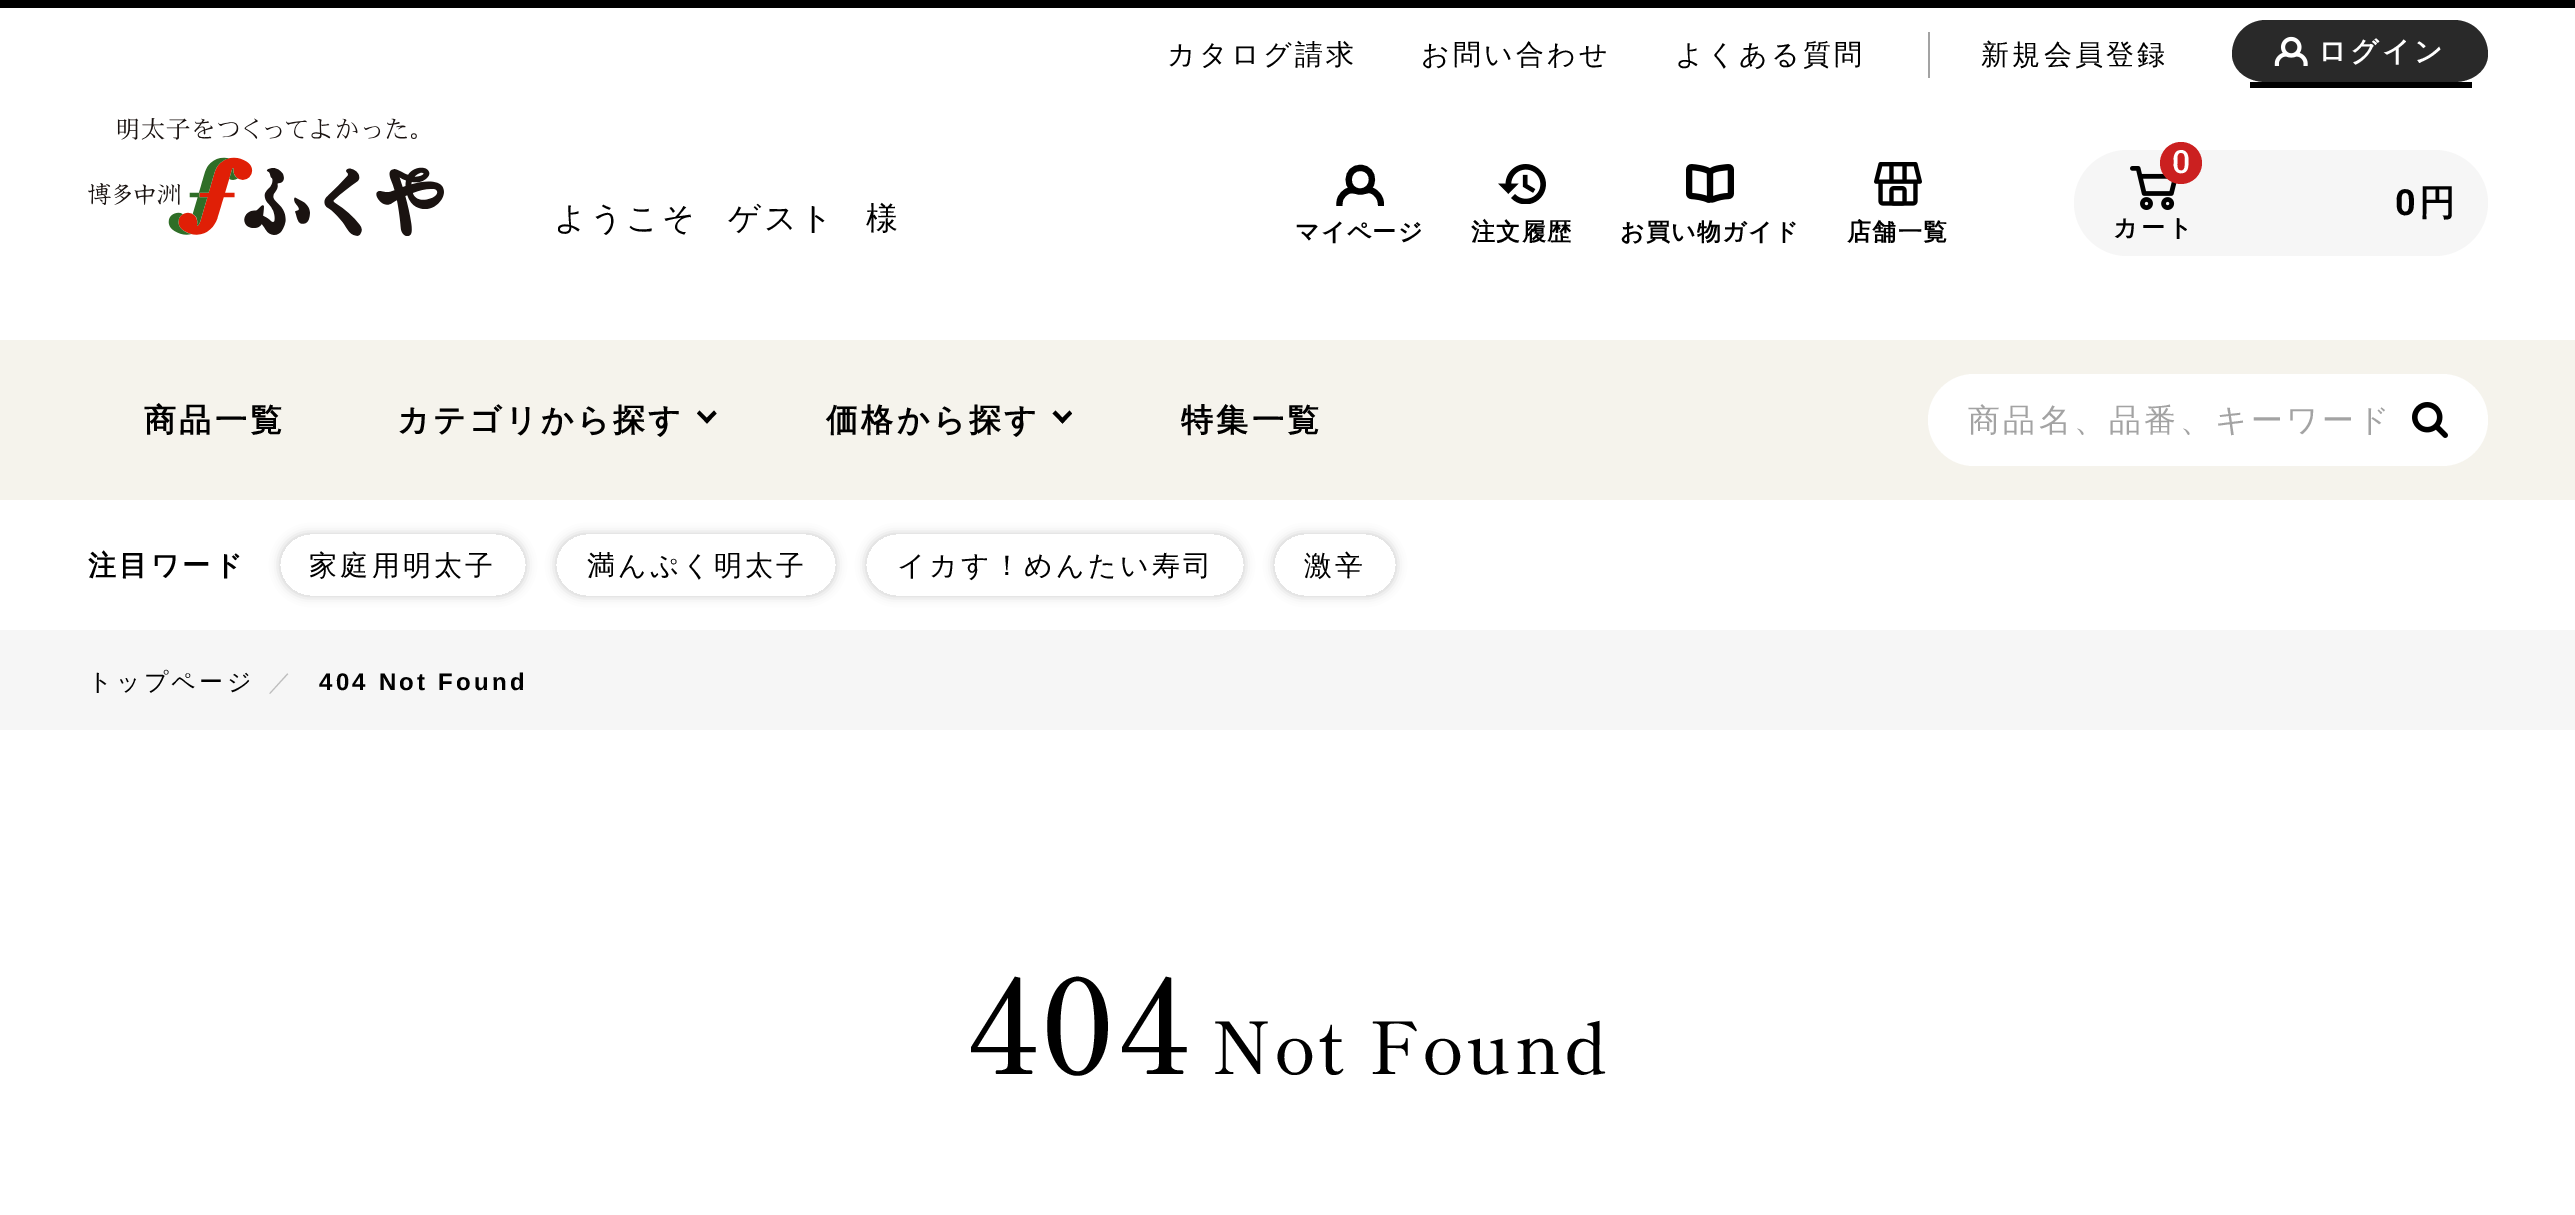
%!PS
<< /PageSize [2575 1215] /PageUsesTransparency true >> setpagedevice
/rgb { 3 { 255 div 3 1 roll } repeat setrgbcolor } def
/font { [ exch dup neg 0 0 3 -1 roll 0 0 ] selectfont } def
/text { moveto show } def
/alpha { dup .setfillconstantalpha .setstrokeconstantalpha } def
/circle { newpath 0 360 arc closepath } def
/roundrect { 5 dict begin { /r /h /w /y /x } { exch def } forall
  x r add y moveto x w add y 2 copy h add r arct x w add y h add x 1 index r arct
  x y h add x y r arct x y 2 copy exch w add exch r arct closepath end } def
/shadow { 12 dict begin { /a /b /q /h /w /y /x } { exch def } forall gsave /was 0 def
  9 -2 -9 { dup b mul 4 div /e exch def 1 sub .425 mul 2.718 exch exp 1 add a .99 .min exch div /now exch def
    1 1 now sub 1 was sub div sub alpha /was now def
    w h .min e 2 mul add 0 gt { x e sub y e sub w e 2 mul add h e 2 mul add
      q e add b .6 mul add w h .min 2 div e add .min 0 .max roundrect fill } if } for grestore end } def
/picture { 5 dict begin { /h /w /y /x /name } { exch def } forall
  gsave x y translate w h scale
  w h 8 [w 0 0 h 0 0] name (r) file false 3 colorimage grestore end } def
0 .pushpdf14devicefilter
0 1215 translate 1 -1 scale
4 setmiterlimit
255 255 255 rgb
0 0 2575 1215 rectfill
0 0 0 rgb
0 0 2575 8 rectfill
163 163 163 rgb
1928 32 2 46 rectfill
41 41 41 rgb
2266 20 moveto 188 0 rlineto 19 0 34 15 34 34 rcurveto 0 16 -15 28 -34 28 rcurveto -188 0 rlineto -19 0 -34 -12 -34 -28 rcurveto 0 -19 15 -34 34 -34 rcurveto closepath fill
0 0 0 rgb
2250 82 222 6 rectfill
(img_01.rgb) 2274 36 34 30 picture
(img_02.rgb) 88 118 356 118 picture
gsave
1336 162 48 44 rectclip
6.1 setlinewidth
1360 191.5 moveto 15.5 0 16 -23 1 -23.5 rcurveto -16 -1 -16.5 23.5 -1 23.5 rcurveto closepath 1368.5 190 moveto -6.5 1.5 rlineto -5.5 0.5 -9.5 -3 -15 0 rcurveto -3 1.5 -5 4 -6.5 7 rcurveto -1.5 3.5 -2.5 14.5 3.5 14.5 rcurveto 21.5 0 rlineto 9.5 0 15.5 3 15.5 -7.5 rcurveto 0 -4.5 -1 -8 -4 -11 rcurveto -2 -2.5 -5 -4.5 -8.5 -4.5 rcurveto closepath stroke
grestore
(img_03.rgb) 1498 164 48 40 picture
(img_04.rgb) 1686 164 48 39 picture
(img_05.rgb) 1874 162 48 44 picture
246 246 246 rgb
2074 150 414 106 53 roundrect fill
(img_06.rgb) 2130 166 47 44 picture
203 32 32 rgb
2181 163 21 circle fill
245 243 236 rgb
0 340 2575 160 rectfill
0 0 0 rgb
714 410.5 moveto 2.5 3 rlineto -9.5 10 rlineto -3 -3 rlineto closepath fill
699.5 410.5 moveto 10 10 rlineto -2.5 3 rlineto -10 -10 rlineto closepath fill
1069.5 410.5 moveto 2.5 3 rlineto -9.5 10 rlineto -3 -3 rlineto closepath fill
1055.5 410.5 moveto 9.5 10 rlineto -2.5 3 rlineto -10 -10 rlineto closepath fill
255 255 255 rgb
1928 374 560 92 46 roundrect fill
(img_07.rgb) 2412 402 36 36 picture
gsave
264 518 moveto 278 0 rlineto 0 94 rlineto -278 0 rlineto closepath 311 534 moveto 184 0 rlineto 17 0 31 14 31 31 rcurveto 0 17 -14 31 -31 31 rcurveto -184 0 rlineto -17 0 -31 -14 -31 -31 rcurveto 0 -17 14 -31 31 -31 rcurveto closepath eoclip newpath
0 0 0 rgb
280 534 246 62 31 5 0.2 shadow
grestore
gsave
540 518 moveto 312 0 rlineto 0 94 rlineto -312 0 rlineto closepath 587 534 moveto 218 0 rlineto 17 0 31 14 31 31 rcurveto 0 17 -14 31 -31 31 rcurveto -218 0 rlineto -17 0 -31 -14 -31 -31 rcurveto 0 -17 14 -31 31 -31 rcurveto closepath eoclip newpath
0 0 0 rgb
556 534 280 62 31 5 0.2 shadow
grestore
gsave
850 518 moveto 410 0 rlineto 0 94 rlineto -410 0 rlineto closepath 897 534 moveto 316 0 rlineto 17 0 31 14 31 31 rcurveto 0 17 -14 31 -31 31 rcurveto -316 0 rlineto -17 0 -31 -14 -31 -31 rcurveto 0 -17 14 -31 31 -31 rcurveto closepath eoclip newpath
0 0 0 rgb
866 534 378 62 31 5 0.2 shadow
grestore
gsave
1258 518 moveto 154 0 rlineto 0 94 rlineto -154 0 rlineto closepath 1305 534 moveto 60 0 rlineto 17 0 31 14 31 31 rcurveto 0 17 -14 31 -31 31 rcurveto -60 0 rlineto -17 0 -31 -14 -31 -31 rcurveto 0 -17 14 -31 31 -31 rcurveto closepath eoclip newpath
0 0 0 rgb
1274 534 122 62 31 5 0.2 shadow
grestore
246 246 246 rgb
0 630 2575 100 rectfill
/WenQuanYiZenHei-Medium 28 font
0 0 0 rgb
1167 64 moveto 3.25 0 (カタログ請求) ashow
1421 64 moveto 3.25 0 (お問い合わせ) ashow
1675 64 moveto 3.25 0 (よくある質問) ashow
1981 64 moveto 3.25 0 (新規会員登録) ashow
/WenQuanYiZenHei-Bold 28 font
255 255 255 rgb
2318 61 moveto 3.25 0 (ログイン) ashow
/WenQuanYiZenHei-Medium 32 font
0 0 0 rgb
554 229 moveto 3.25 0 (ようこそ) ashow
728 229 moveto 3.25 0 (ゲスト) ashow
866 229 moveto 3.25 0 (様) ashow
/WenQuanYiZenHei-Bold 24 font
1295 240 moveto 1.25 0 (マイページ) ashow
1471 240 moveto 1.25 0 (注文履歴) ashow
1620 240 moveto 1.25 0 (お買い物ガイド) ashow
1847 240 moveto 1.25 0 (店舗一覧) ashow
/Roboto-Medium 32 font
255 255 255 rgb
(0) 2172 173 text
/WenQuanYiZenHei-Bold 24 font
0 0 0 rgb
2113 236 moveto 3.25 0 (カート) ashow
/Roboto-Bold 36 font
2395 215 moveto 3.25 0 (0) ashow
/WenQuanYiZenHei-Bold 36 font
2419 215 moveto 3.25 0 (円) ashow
/WenQuanYiZenHei-Bold 32 font
144 431 moveto 3.25 0 (商品一覧) ashow
397 431 moveto 3.25 0 (カテゴリから探す) ashow
826 431 moveto 3.25 0 (価格から探す) ashow
1181 431 moveto 3.25 0 (特集一覧) ashow
/WenQuanYiZenHei-Medium 32 font
163 163 163 rgb
1968 431 moveto 3.25 0 (商品名、品番、キーワード) ashow
/WenQuanYiZenHei-Bold 28 font
0 0 0 rgb
88 575 moveto 3.25 0 (注目ワード) ashow
/WenQuanYiZenHei-Medium 28 font
309 575 moveto 3.25 0 (家庭用明太子) ashow
587 575 moveto 3.25 0 (満んぷく明太子) ashow
897 575 moveto 3.25 0 (イカす！めんたい寿司) ashow
1304 575 moveto 3.25 0 (激辛) ashow
/WenQuanYiZenHei-Medium 24 font
88 690 moveto 3.25 0 (トップページ) ashow
190 190 190 rgb
268 690 moveto 3.25 0 (／) ashow
/LiberationSans-Bold 24 font
0 0 0 rgb
319 690 moveto 3.25 0 (404 Not Found) ashow
/ShipporiMincho-Medium 132 font
967 1074 moveto 3.25 0 (404) ashow
/ShipporiMincho-Medium 72 font
1212 1074 moveto 3.25 0 (Not Found) ashow
.poppdf14devicefilter showpage
